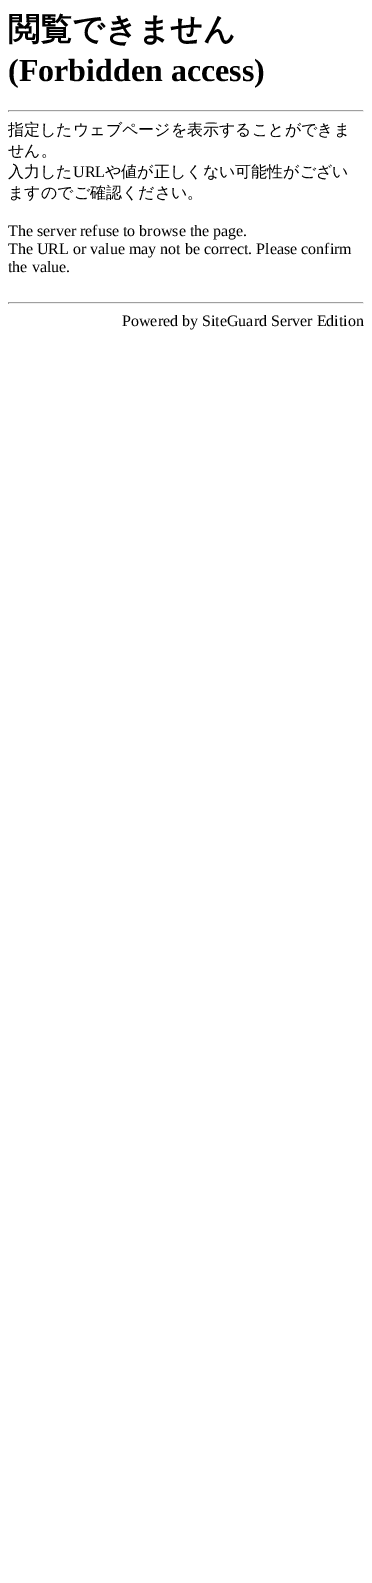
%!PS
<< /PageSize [372 1583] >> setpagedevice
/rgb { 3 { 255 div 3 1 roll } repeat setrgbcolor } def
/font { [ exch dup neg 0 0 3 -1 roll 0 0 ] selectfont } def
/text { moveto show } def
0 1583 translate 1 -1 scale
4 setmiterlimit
255 255 255 rgb
0 0 372 1583 rectfill
159 159 159 rgb
8 110 356 1 rectfill
238 238 238 rgb
363 110 1 2 rectfill
8 111 356 1 rectfill
159 159 159 rgb
8 110 1 2 rectfill
8 302 356 1 rectfill
238 238 238 rgb
363 302 1 2 rectfill
8 303 356 1 rectfill
159 159 159 rgb
8 302 1 2 rectfill
/WenQuanYiZenHei-Bold 32 font
0 0 0 rgb
(閲覧できません) 8 40 text
/LiberationSerif-Bold 32 font
(\(Forbidden access\)) 8 81 text
/WenQuanYiZenHei-Medium 16 font
(指定したウェブページを表示することができま) 8 135 text
(せん。) 8 156 text
(入力した) 8 177 text
/LiberationSerif-Regular 16 font
(URL) 73 177 text
/WenQuanYiZenHei-Medium 16 font
(や値が正しくない可能性がござい) 105 177 text
(ますのでご確認ください。) 8 198 text
/LiberationSerif-Regular 16 font
(The server refuse to browse the page.) 8 236 text
(The URL or value may not be correct. Please confirm) 8 254 text
(the value.) 8 272 text
(Powered by SiteGuard Server Edition) 122 326 text
showpage
